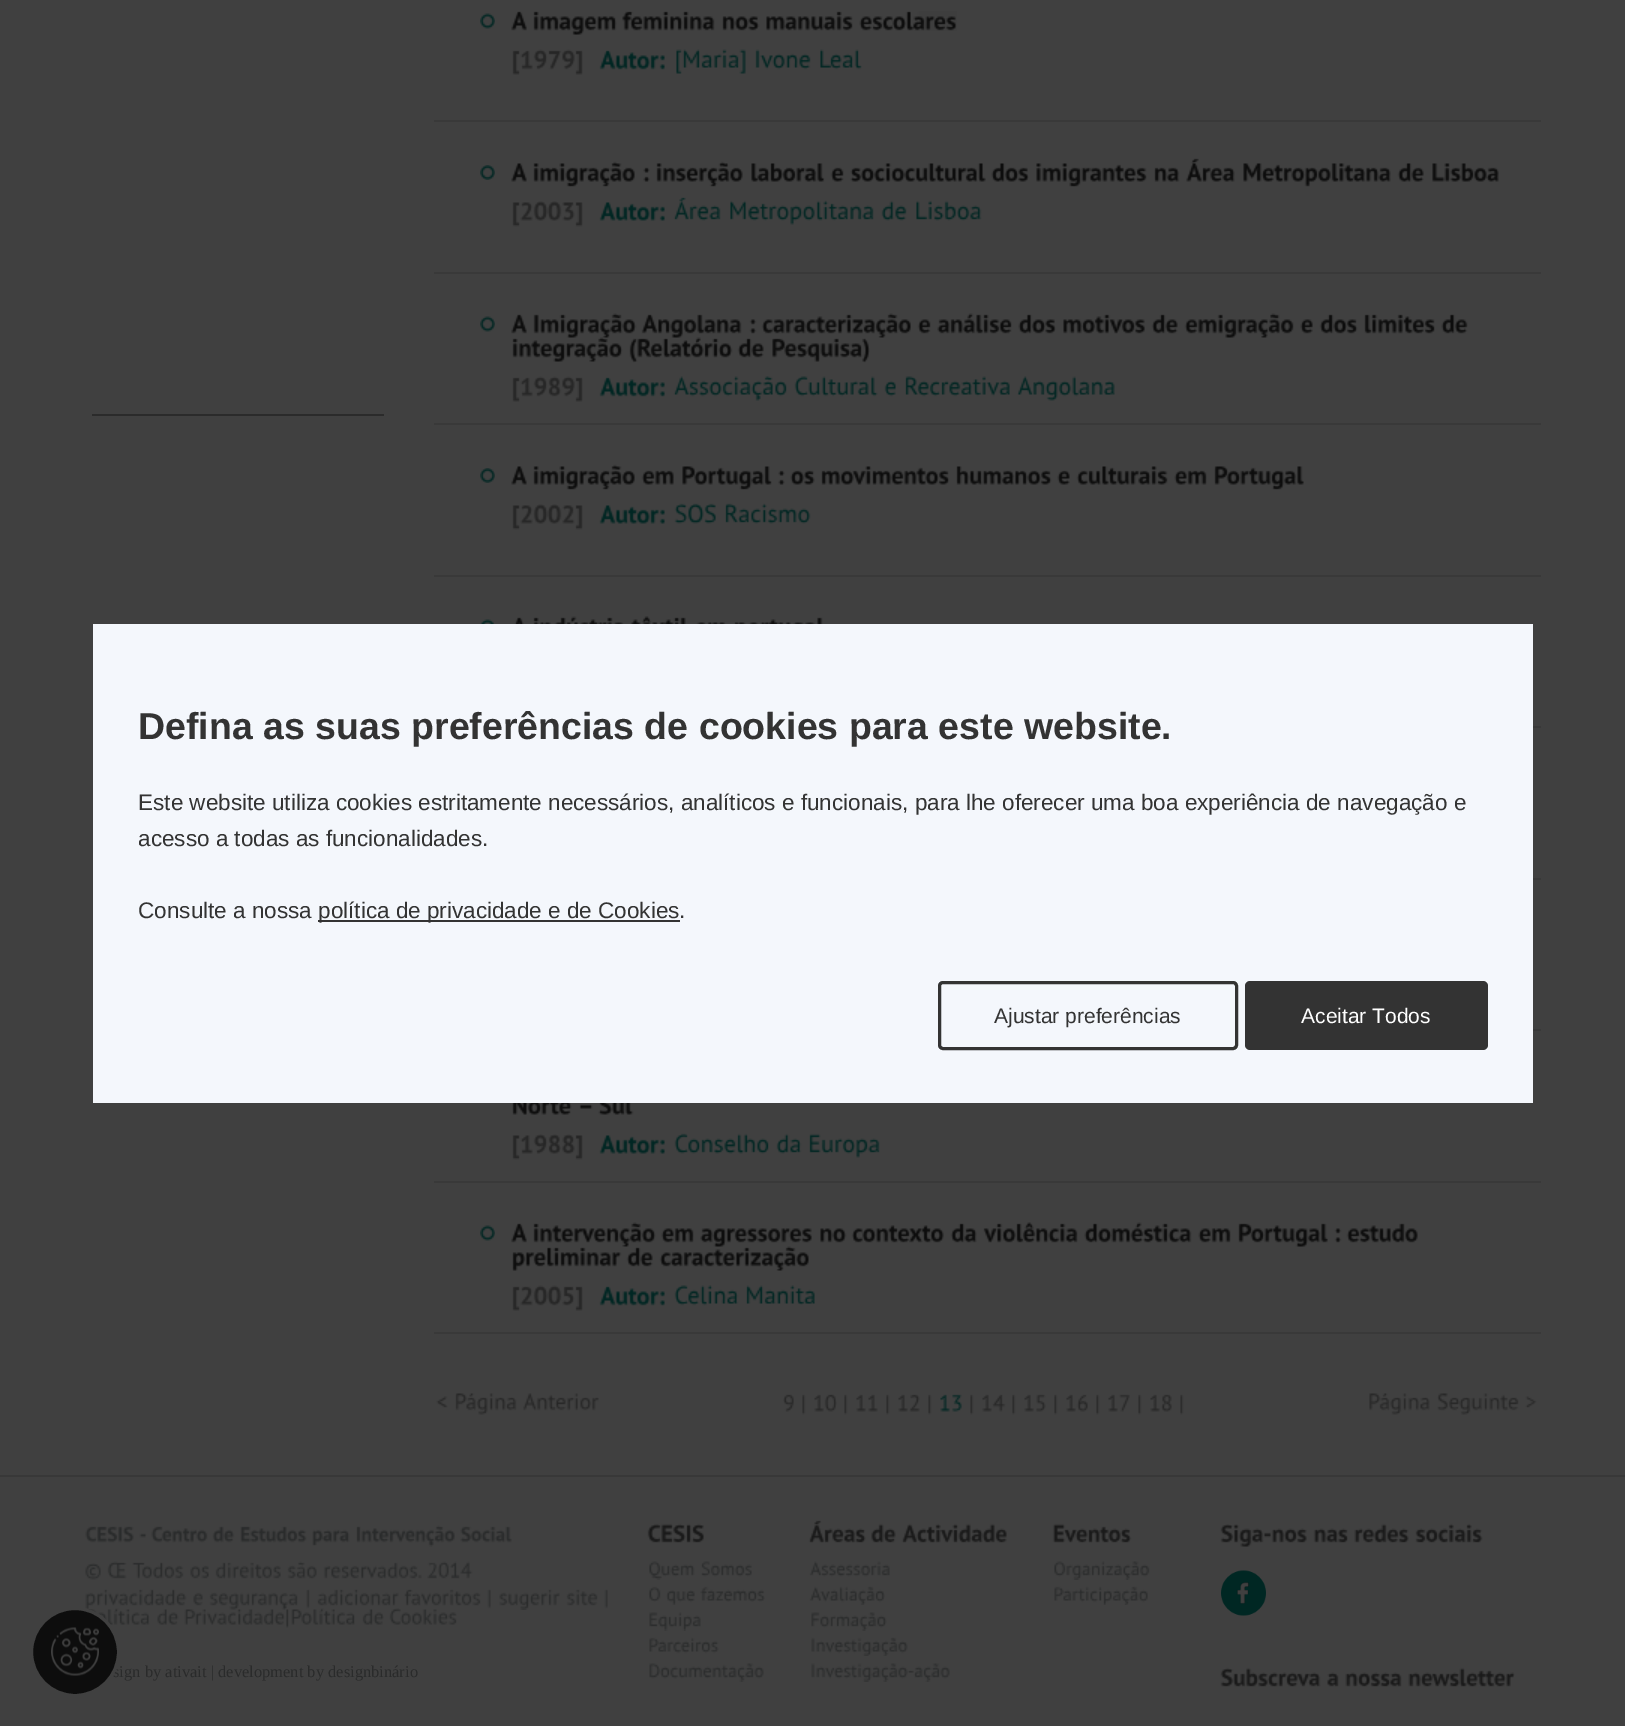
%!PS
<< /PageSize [1625 1726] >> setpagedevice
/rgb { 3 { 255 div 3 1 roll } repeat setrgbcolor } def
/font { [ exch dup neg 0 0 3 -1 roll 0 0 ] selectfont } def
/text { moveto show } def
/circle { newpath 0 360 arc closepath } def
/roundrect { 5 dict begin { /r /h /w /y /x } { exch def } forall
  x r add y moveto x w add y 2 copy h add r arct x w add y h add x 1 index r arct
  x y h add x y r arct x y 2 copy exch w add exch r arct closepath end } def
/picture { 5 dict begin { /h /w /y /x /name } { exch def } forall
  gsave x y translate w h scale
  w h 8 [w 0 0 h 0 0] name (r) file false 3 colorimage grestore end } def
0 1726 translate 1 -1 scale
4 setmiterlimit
64 64 64 rgb
0 0 1625 1726 rectfill
244 247 252 rgb
93 624 1440 479 rectfill
51 51 51 rgb
318 920 362 2 rectfill
3 setlinewidth
939.5 982.5 297 66 3.5 roundrect stroke
1245 981 243 69 5 roundrect fill
43 43 43 rgb
92 414 292 2 rectfill
57 57 57 rgb
434 120 1107 2 rectfill
(img_02.rgb) 480 13 15 16 picture
(img_03.rgb) 511 11 16 20 picture
(img_04.rgb) 533 11 84 24 picture
(img_05.rgb) 622 11 93 20 picture
(img_06.rgb) 722 16 38 15 picture
(img_07.rgb) 766 11 87 20 picture
(img_08.rgb) 859 11 98 20 picture
(img_09.rgb) 512 49 71 26 picture
(img_10.rgb) 599 50 66 20 picture
(img_11.rgb) 676 49 70 25 picture
(img_12.rgb) 755 49 56 21 picture
(img_13.rgb) 820 49 42 21 picture
434 272 1107 2 rectfill
(img_14.rgb) 480 165 15 15 picture
(img_15.rgb) 511 163 16 19 picture
(img_16.rgb) 533 161 102 26 picture
(img_17.rgb) 643 167 7 15 picture
(img_18.rgb) 656 161 87 26 picture
(img_19.rgb) 751 163 74 19 picture
(img_20.rgb) 830 167 14 15 picture
(img_21.rgb) 850 163 136 19 picture
(img_22.rgb) 991 163 38 19 picture
(img_23.rgb) 1036 163 111 24 picture
(img_24.rgb) 1154 167 26 15 picture
(img_25.rgb) 1186 158 49 24 picture
(img_26.rgb) 1243 163 148 24 picture
(img_27.rgb) 1397 163 27 19 picture
(img_28.rgb) 1432 163 67 19 picture
(img_29.rgb) 512 201 71 26 picture
(img_30.rgb) 599 202 66 19 picture
(img_31.rgb) 673 197 48 24 picture
(img_32.rgb) 730 200 144 25 picture
(img_33.rgb) 881 200 26 21 picture
(img_34.rgb) 916 200 66 21 picture
434 423 1107 2 rectfill
(img_02.rgb) 480 316 15 16 picture
(img_03.rgb) 511 314 16 20 picture
(img_35.rgb) 533 313 104 25 picture
(img_36.rgb) 641 314 101 24 picture
(img_37.rgb) 749 319 8 15 picture
(img_38.rgb) 761 313 150 25 picture
(img_39.rgb) 917 319 14 15 picture
(img_40.rgb) 937 313 75 21 picture
(img_41.rgb) 1018 314 38 20 picture
(img_42.rgb) 1063 314 82 20 picture
(img_43.rgb) 1151 314 27 20 picture
(img_44.rgb) 1184 313 110 25 picture
(img_45.rgb) 1300 319 13 15 picture
(img_46.rgb) 1319 314 39 20 picture
(img_47.rgb) 1364 314 71 20 picture
(img_48.rgb) 1441 314 27 20 picture
(img_49.rgb) 512 337 111 25 picture
(img_50.rgb) 629 337 104 26 picture
(img_43.rgb) 737 338 27 20 picture
(img_51.rgb) 772 338 98 25 picture
(img_52.rgb) 512 376 71 26 picture
(img_10.rgb) 599 377 66 20 picture
(img_53.rgb) 673 376 114 25 picture
(img_54.rgb) 794 376 84 21 picture
(img_55.rgb) 884 380 12 17 picture
(img_56.rgb) 905 376 105 21 picture
(img_57.rgb) 1017 376 98 25 picture
434 575 1107 2 rectfill
(img_14.rgb) 480 468 15 15 picture
(img_15.rgb) 511 466 16 19 picture
(img_16.rgb) 533 464 102 26 picture
(img_58.rgb) 641 470 33 15 picture
(img_59.rgb) 682 466 90 24 picture
(img_17.rgb) 778 470 7 15 picture
(img_60.rgb) 790 470 25 15 picture
(img_61.rgb) 821 466 129 19 picture
(img_62.rgb) 956 466 96 19 picture
(img_63.rgb) 1057 470 13 15 picture
(img_64.rgb) 1076 466 92 19 picture
(img_65.rgb) 1174 470 33 15 picture
(img_66.rgb) 1214 466 90 24 picture
(img_67.rgb) 512 504 71 26 picture
(img_30.rgb) 599 505 66 19 picture
(img_68.rgb) 674 503 42 21 picture
(img_69.rgb) 725 503 86 21 picture
1533 726 8 2 rectfill
(img_70.rgb) 480 619 15 5 picture
(img_71.rgb) 514 617 10 7 picture
(img_72.rgb) 533 616 91 8 picture
(img_73.rgb) 631 616 55 8 picture
(img_74.rgb) 696 622 30 2 picture
(img_75.rgb) 734 617 89 7 picture
1533 878 8 2 rectfill
1533 1029 8 2 rectfill
434 1181 1107 2 rectfill
(img_76.rgb) 512 1103 60 12 picture
(img_77.rgb) 579 1104 14 5 picture
(img_78.rgb) 598 1103 36 12 picture
(img_79.rgb) 512 1134 71 26 picture
(img_30.rgb) 599 1135 66 19 picture
(img_80.rgb) 674 1133 95 21 picture
(img_81.rgb) 776 1133 26 21 picture
(img_82.rgb) 809 1133 71 25 picture
434 1332 1107 2 rectfill
(img_02.rgb) 480 1225 15 16 picture
(img_03.rgb) 511 1223 16 20 picture
(img_83.rgb) 533 1222 123 25 picture
(img_84.rgb) 661 1228 33 15 picture
(img_85.rgb) 700 1228 112 19 picture
(img_86.rgb) 820 1228 27 15 picture
(img_87.rgb) 851 1225 93 18 picture
(img_88.rgb) 950 1223 27 20 picture
(img_89.rgb) 983 1222 95 21 picture
(img_90.rgb) 1084 1222 108 21 picture
(img_84.rgb) 1198 1228 33 15 picture
(img_91.rgb) 1238 1223 90 24 picture
(img_37.rgb) 1334 1228 8 15 picture
(img_92.rgb) 1346 1223 72 20 picture
(img_93.rgb) 512 1247 110 24 picture
(img_43.rgb) 626 1247 27 20 picture
(img_94.rgb) 659 1246 150 25 picture
(img_95.rgb) 512 1285 71 26 picture
(img_10.rgb) 599 1286 66 20 picture
(img_96.rgb) 674 1285 65 21 picture
(img_97.rgb) 746 1285 69 20 picture
(img_98.rgb) 436 1396 12 12 picture
(img_99.rgb) 455 1393 62 22 picture
(img_100.rgb) 523 1393 76 18 picture
(img_101.rgb) 783 1394 11 18 picture
(img_102.rgb) 802 1394 4 21 picture
(img_103.rgb) 814 1394 23 18 picture
(img_102.rgb) 844 1394 4 21 picture
(img_104.rgb) 856 1394 22 18 picture
(img_102.rgb) 886 1394 4 21 picture
(img_105.rgb) 898 1394 22 18 picture
(img_102.rgb) 928 1394 4 21 picture
(img_106.rgb) 940 1394 22 18 picture
(img_102.rgb) 970 1394 4 21 picture
(img_107.rgb) 982 1394 24 18 picture
(img_102.rgb) 1012 1394 4 21 picture
(img_108.rgb) 1024 1394 22 18 picture
(img_102.rgb) 1054 1394 4 21 picture
(img_109.rgb) 1066 1394 22 18 picture
(img_102.rgb) 1096 1394 4 21 picture
(img_110.rgb) 1108 1394 22 18 picture
(img_102.rgb) 1138 1394 4 21 picture
(img_111.rgb) 1150 1394 22 18 picture
(img_102.rgb) 1180 1394 4 21 picture
(img_112.rgb) 1369 1393 61 22 picture
(img_113.rgb) 1437 1393 82 22 picture
(img_114.rgb) 1525 1396 12 12 picture
56 56 56 rgb
0 1475 1625 2 rectfill
(img_115.rgb) 85 1526 49 17 picture
(img_116.rgb) 139 1533 8 5 picture
(img_117.rgb) 151 1526 57 17 picture
(img_118.rgb) 212 1526 23 17 picture
(img_119.rgb) 240 1526 67 17 picture
(img_120.rgb) 312 1529 38 17 picture
(img_121.rgb) 356 1525 99 22 picture
(img_122.rgb) 460 1526 52 17 picture
(img_123.rgb) 85 1563 16 17 picture
(img_124.rgb) 107 1561 20 18 picture
(img_125.rgb) 132 1562 52 17 picture
(img_126.rgb) 190 1565 19 14 picture
(img_127.rgb) 215 1562 66 17 picture
(img_128.rgb) 287 1561 30 18 picture
(img_129.rgb) 323 1562 99 17 picture
(img_130.rgb) 427 1561 46 18 picture
(img_131.rgb) 85 1589 102 21 picture
(img_132.rgb) 193 1592 10 14 picture
(img_133.rgb) 209 1592 89 18 picture
(img_134.rgb) 306 1589 4 20 picture
(img_135.rgb) 317 1589 82 17 picture
(img_136.rgb) 404 1589 77 17 picture
(img_137.rgb) 487 1589 4 20 picture
(img_138.rgb) 499 1589 61 21 picture
(img_139.rgb) 566 1589 32 17 picture
(img_137.rgb) 604 1589 4 20 picture
(img_140.rgb) 88 1608 62 17 picture
(img_141.rgb) 157 1609 22 16 picture
(img_142.rgb) 184 1609 105 19 picture
(img_143.rgb) 291 1608 64 17 picture
(img_144.rgb) 362 1609 22 16 picture
(img_145.rgb) 389 1608 68 17 picture
(img_146.rgb) 647 1523 57 20 picture
(img_147.rgb) 649 1561 46 19 picture
(img_148.rgb) 701 1561 51 16 picture
(img_149.rgb) 648 1586 13 16 picture
(img_150.rgb) 666 1590 29 15 picture
(img_151.rgb) 700 1586 65 16 picture
(img_152.rgb) 649 1612 52 19 picture
(img_153.rgb) 649 1637 70 17 picture
(img_154.rgb) 649 1663 115 19 picture
(img_155.rgb) 808 1520 58 23 picture
(img_156.rgb) 871 1523 25 20 picture
(img_157.rgb) 901 1523 106 20 picture
(img_158.rgb) 809 1561 81 16 picture
(img_159.rgb) 809 1586 76 19 picture
(img_160.rgb) 811 1612 76 19 picture
(img_161.rgb) 811 1637 97 19 picture
(img_162.rgb) 811 1663 139 19 picture
(img_163.rgb) 1052 1523 80 20 picture
(img_164.rgb) 1054 1561 96 19 picture
(img_165.rgb) 1054 1586 94 19 picture
(img_166.rgb) 1220 1524 87 23 picture
(img_167.rgb) 1313 1528 35 15 picture
(img_168.rgb) 1354 1523 55 20 picture
(img_169.rgb) 1415 1523 68 20 picture
(img_170.rgb) 1221 1570 45 46 picture
(img_171.rgb) 1220 1667 101 20 picture
(img_172.rgb) 1327 1672 12 15 picture
(img_173.rgb) 1345 1672 57 15 picture
(img_174.rgb) 1408 1667 107 20 picture
/LiberationSans-Bold 37.5 font
51 51 51 rgb
(Defina as suas preferências de cookies para este website.) 138 739 text
/LiberationSans-Regular 22.5 font
(Este website utiliza cookies estritamente necessários, analíticos e funcionais, para lhe oferecer uma boa experiência de navegação e) 138 810 text
(acesso a todas as funcionalidades.) 138 846 text
(Consulte a nossa) 138 918 text
(política de privacidade e de Cookies.) 318 918 text
/LiberationSans-Regular 21 font
(Ajustar preferências) 994 1023 text
255 255 255 rgb
(Aceitar Todos) 1301 1023 text
/LiberationSerif-Regular 16.5 font
42 43 43 rgb
(sign by ativait | development by designbinário) 113 1677 text
13 13 13 rgb
75 1652 43.5 circle gsave fill grestore
64 64 64 rgb
stroke
(img_01.rgb) 51 1627 48 49 picture
showpage
